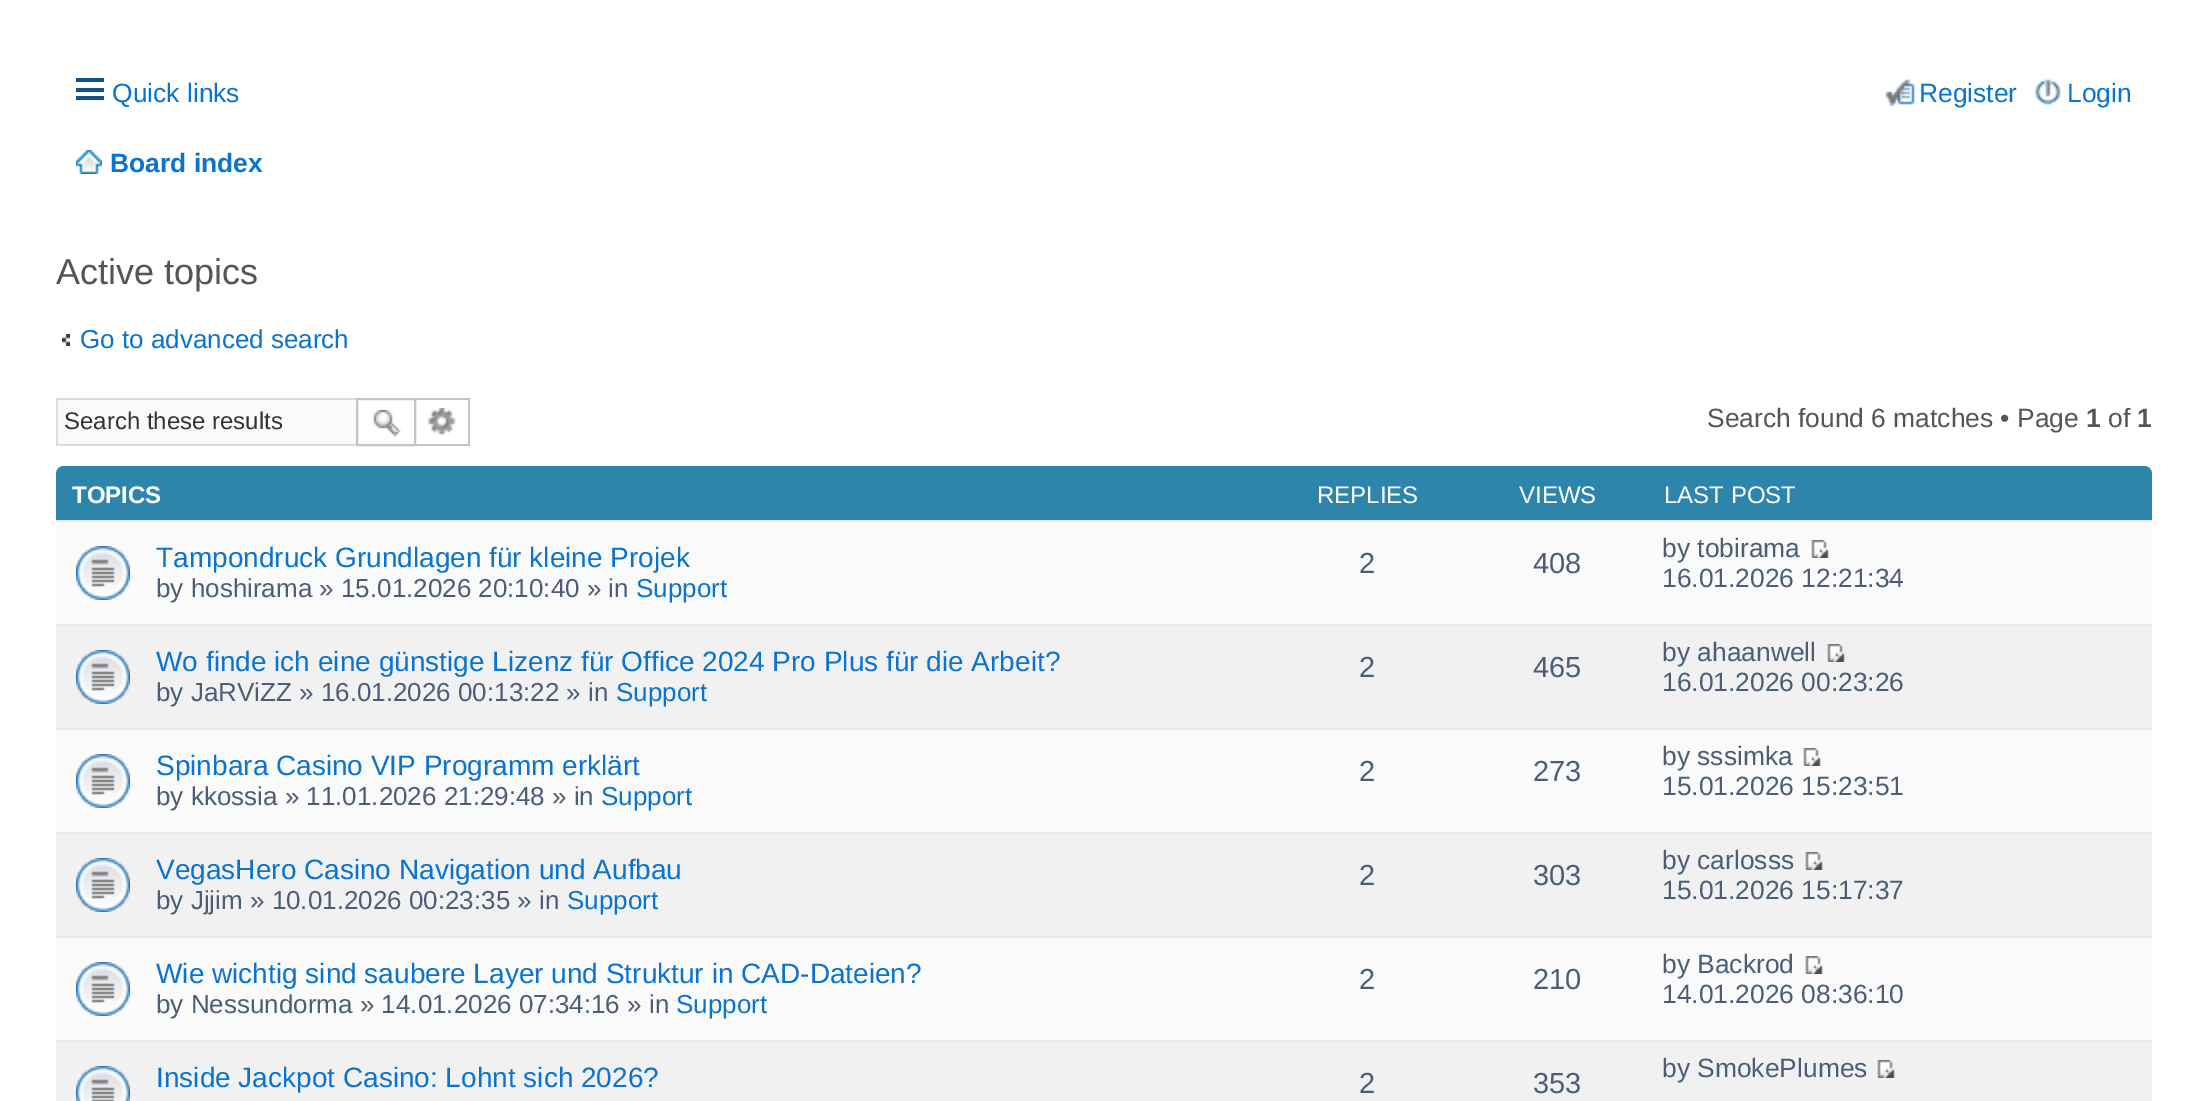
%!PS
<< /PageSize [2207 1101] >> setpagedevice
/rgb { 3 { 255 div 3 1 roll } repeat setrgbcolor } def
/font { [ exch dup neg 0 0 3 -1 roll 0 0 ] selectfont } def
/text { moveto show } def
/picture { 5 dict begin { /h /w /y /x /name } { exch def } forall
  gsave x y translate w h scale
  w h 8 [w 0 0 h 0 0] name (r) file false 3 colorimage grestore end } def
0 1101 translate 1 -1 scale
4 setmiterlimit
255 255 255 rgb
0 0 2207 1101 rectfill
16 82 137 rgb
76 78 28 4 rectfill
76 88 28 4 rectfill
76 96 28 4 rectfill
(img_01.rgb) 1885 79 30 27 picture
(img_02.rgb) 2035 79 26 26 picture
(img_03.rgb) 76 150 26 24 picture
(img_04.rgb) 62 334 8 12 picture
250 250 250 rgb
58 400 298 44 rectfill
221 221 221 rgb
56 398 300 2 rectfill
56 444 300 2 rectfill
56 398 2 48 rectfill
199 195 191 rgb
2 setlinewidth
357 399 58 46 rectstroke
(img_05.rgb) 373 410 28 27 picture
416 398 54 2 rectfill
468 398 2 48 rectfill
416 444 54 2 rectfill
(img_06.rgb) 427 408 30 27 picture
46 133 171 rgb
64 466 moveto 2080 0 rlineto 4.5 0 8 3.5 8 8 rcurveto 0 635 rlineto -2096 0 rlineto 0 -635 rlineto 0 -4.5 3.5 -8 8 -8 rcurveto closepath fill
233 233 233 rgb
56 520 2096 2 rectfill
250 250 250 rgb
56 522 2096 102 rectfill
233 233 233 rgb
56 624 2096 2 rectfill
(img_07.rgb) 76 546 54 54 picture
(img_08.rgb) 1811 540 18 18 picture
241 241 241 rgb
56 626 2096 102 rectfill
233 233 233 rgb
56 728 2096 2 rectfill
(img_09.rgb) 76 650 54 54 picture
(img_10.rgb) 1827 644 18 18 picture
250 250 250 rgb
56 730 2096 102 rectfill
233 233 233 rgb
56 832 2096 2 rectfill
(img_07.rgb) 76 754 54 54 picture
(img_08.rgb) 1803 748 18 18 picture
241 241 241 rgb
56 834 2096 102 rectfill
233 233 233 rgb
56 936 2096 2 rectfill
(img_09.rgb) 76 858 54 54 picture
(img_10.rgb) 1805 852 18 18 picture
250 250 250 rgb
56 938 2096 102 rectfill
233 233 233 rgb
56 1040 2096 2 rectfill
(img_07.rgb) 76 962 54 54 picture
(img_08.rgb) 1805 956 18 18 picture
241 241 241 rgb
56 1042 2096 59 rectfill
(img_11.rgb) 76 1066 54 35 picture
(img_10.rgb) 1877 1060 18 18 picture
/LiberationSans-Regular 26.4 font
9 115 209 rgb
(Quick links) 112 102 text
(Register) 1919 102 text
(Login) 2067 102 text
/LiberationSans-Bold 26.4 font
(Board index) 110 172 text
/LiberationSans-Regular 36 font
85 85 85 rgb
(Active topics) 56 284 text
/LiberationSans-Regular 26 font
9 115 209 rgb
(Go to advanced search) 80 348 text
/LiberationSans-Regular 24 font
51 51 51 rgb
(Search these results) 64 429 text
/LiberationSans-Regular 26.4 font
85 85 85 rgb
(Search found 6 matches • Page) 1707 427 text
/LiberationSans-Bold 26.4 font
(1) 2086 427 text
/LiberationSans-Regular 26.4 font
(of) 2108 427 text
/LiberationSans-Bold 26.4 font
(1) 2137 427 text
/LiberationSans-Bold 24 font
255 255 255 rgb
(TOPICS) 72 503 text
/LiberationSans-Regular 24 font
(REPLIES) 1317 503 text
(VIEWS) 1519 503 text
(LAST POST) 1664 503 text
/LiberationSans-Regular 28 font
9 115 209 rgb
(Tampondruck Grundlagen für kleine Projek) 156 567 text
/LiberationSans-Regular 26 font
76 93 119 rgb
(by hoshirama » 15.01.2026 20:10:40 » in) 156 597 text
9 115 209 rgb
(Support) 636 597 text
/LiberationSans-Regular 29 font
76 93 119 rgb
(2) 1359 573 text
(408) 1533 573 text
/LiberationSans-Regular 26.4 font
(by tobirama) 1662 557 text
(16.01.2026 12:21:34) 1662 587 text
/LiberationSans-Regular 28 font
9 115 209 rgb
(Wo finde ich eine günstige Lizenz für Office 2024 Pro Plus für die Arbeit?) 156 671 text
/LiberationSans-Regular 26 font
76 93 119 rgb
(by JaRViZZ » 16.01.2026 00:13:22 » in) 156 701 text
9 115 209 rgb
(Support) 616 701 text
/LiberationSans-Regular 29 font
76 93 119 rgb
(2) 1359 677 text
(465) 1533 677 text
/LiberationSans-Regular 26.4 font
(by ahaanwell) 1662 661 text
(16.01.2026 00:23:26) 1662 691 text
/LiberationSans-Regular 28 font
9 115 209 rgb
(Spinbara Casino VIP Programm erklärt) 156 775 text
/LiberationSans-Regular 26 font
76 93 119 rgb
(by kkossia » 11.01.2026 21:29:48 » in) 156 805 text
9 115 209 rgb
(Support) 601 805 text
/LiberationSans-Regular 29 font
76 93 119 rgb
(2) 1359 781 text
(273) 1533 781 text
/LiberationSans-Regular 26.4 font
(by sssimka) 1662 765 text
(15.01.2026 15:23:51) 1662 795 text
/LiberationSans-Regular 28 font
9 115 209 rgb
(VegasHero Casino Navigation und Aufbau) 156 879 text
/LiberationSans-Regular 26 font
76 93 119 rgb
(by Jjjim » 10.01.2026 00:23:35 » in) 156 909 text
9 115 209 rgb
(Support) 567 909 text
/LiberationSans-Regular 29 font
76 93 119 rgb
(2) 1359 885 text
(303) 1533 885 text
/LiberationSans-Regular 26.4 font
(by carlosss) 1662 869 text
(15.01.2026 15:17:37) 1662 899 text
/LiberationSans-Regular 28 font
9 115 209 rgb
(Wie wichtig sind saubere Layer und Struktur in CAD-Dateien?) 156 983 text
/LiberationSans-Regular 26 font
76 93 119 rgb
(by Nessundorma » 14.01.2026 07:34:16 » in) 156 1013 text
9 115 209 rgb
(Support) 676 1013 text
/LiberationSans-Regular 29 font
76 93 119 rgb
(2) 1359 989 text
(210) 1533 989 text
/LiberationSans-Regular 26.4 font
(by Backrod) 1662 973 text
(14.01.2026 08:36:10) 1662 1003 text
/LiberationSans-Regular 28 font
9 115 209 rgb
(Inside Jackpot Casino: Lohnt sich 2026?) 156 1087 text
/LiberationSans-Regular 29 font
76 93 119 rgb
(2) 1359 1093 text
(353) 1533 1093 text
/LiberationSans-Regular 26.4 font
(by SmokePlumes) 1662 1077 text
showpage
